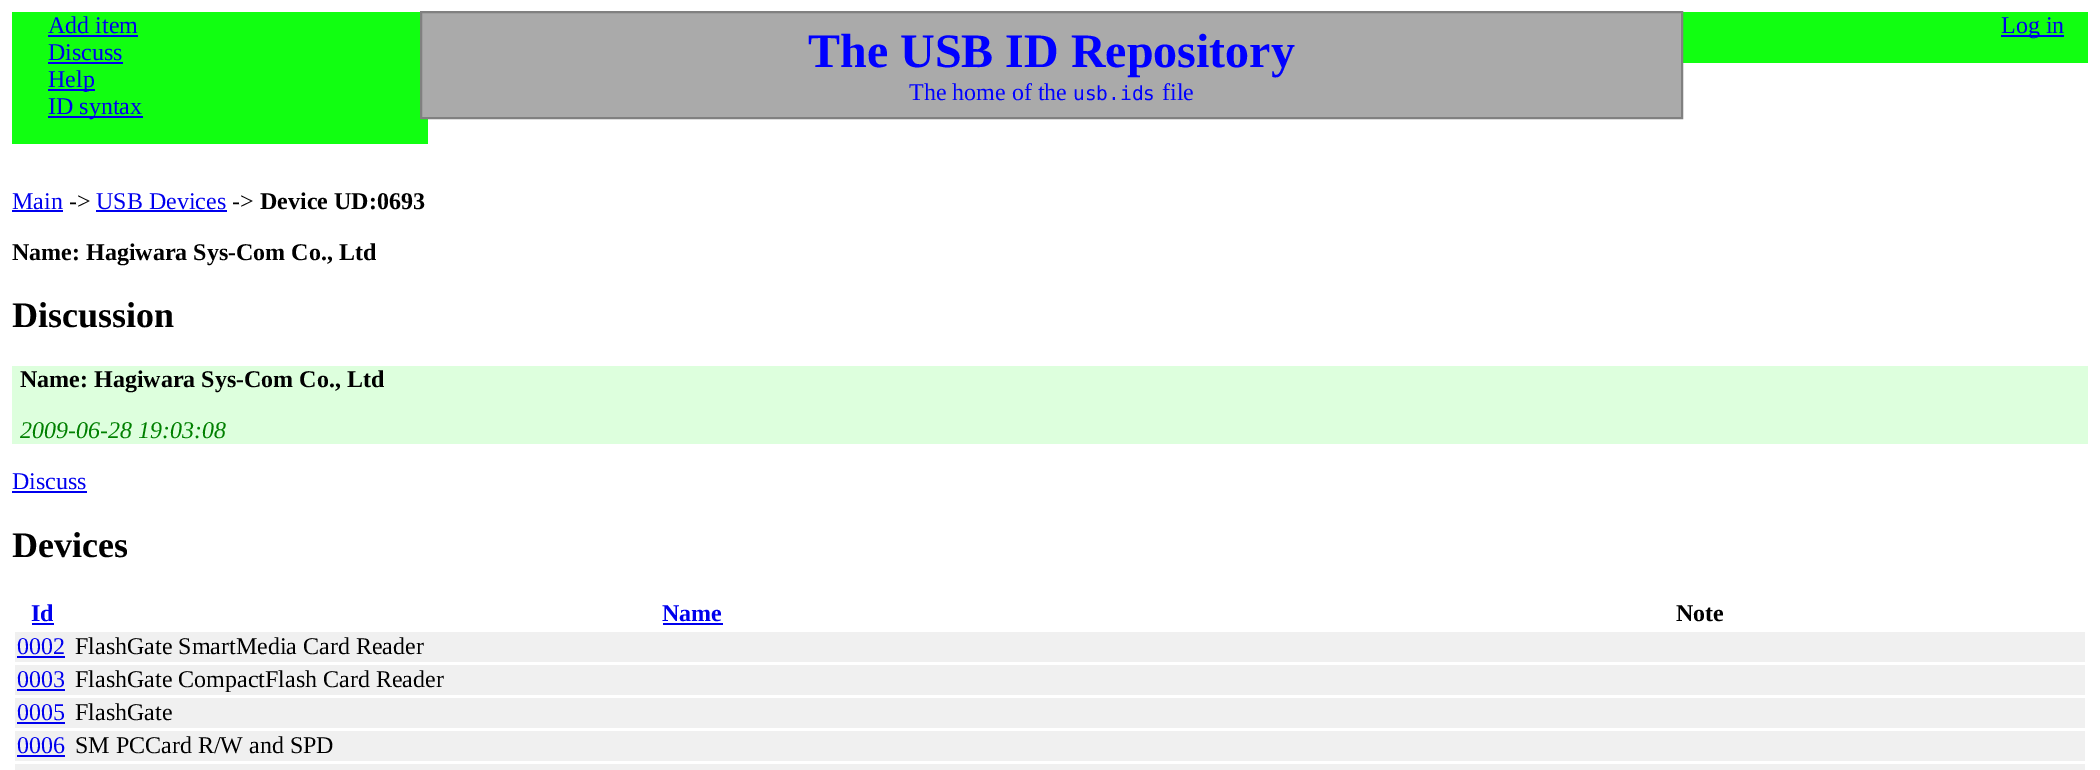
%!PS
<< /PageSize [2100 770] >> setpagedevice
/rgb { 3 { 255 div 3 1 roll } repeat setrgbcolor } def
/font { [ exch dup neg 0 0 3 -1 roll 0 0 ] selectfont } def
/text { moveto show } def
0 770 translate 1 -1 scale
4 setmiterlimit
255 255 255 rgb
0 0 2100 770 rectfill
17 255 17 rgb
12 12 416 132 rectfill
0 0 238 rgb
48 35 90 2 rectfill
48 62 75 2 rectfill
48 89 47 2 rectfill
48 116 95 2 rectfill
17 255 17 rgb
1683 12 405 51 rectfill
0 0 238 rgb
2001 35 63 2 rectfill
170 170 170 rgb
421 12 moveto 1261 0 rlineto 0 106 rlineto -1261 0 rlineto closepath gsave fill grestore
128 128 128 rgb
2 setlinewidth
stroke
0 0 238 rgb
12 210 51 2 rectfill
96 210 131 2 rectfill
221 255 221 rgb
12 366 2076 78 rectfill
0 0 238 rgb
12 491 75 2 rectfill
32 623 22 2 rectfill
663 623 60 2 rectfill
240 240 240 rgb
15 632 2070 30 rectfill
0 0 238 rgb
17 656 48 2 rectfill
240 240 240 rgb
15 665 2070 30 rectfill
0 0 238 rgb
17 689 48 2 rectfill
240 240 240 rgb
15 698 2070 30 rectfill
0 0 238 rgb
17 722 48 2 rectfill
240 240 240 rgb
15 731 2070 30 rectfill
0 0 238 rgb
17 755 48 2 rectfill
240 240 240 rgb
15 764 2070 6 rectfill
/LiberationSerif-Regular 24 font
0 0 238 rgb
(Add item) 48 33 text
(Discuss) 48 60 text
(Help) 48 87 text
(ID syntax) 48 114 text
(Log in) 2001 33 text
/LiberationSerif-Bold 48 font
0 0 255 rgb
(The USB ID Repository) 808 67 text
/LiberationSerif-Regular 24 font
(The home of the) 909 100 text
/DejaVuSansMono-Regular 19.5 font
(usb.ids) 1073 100 text
/LiberationSerif-Regular 24 font
(file) 1162 100 text
0 0 238 rgb
(Main) 12 209 text
0 0 0 rgb
(->) 69 209 text
0 0 238 rgb
(USB Devices) 96 209 text
0 0 0 rgb
(->) 232 209 text
/LiberationSerif-Bold 24 font
(Device UD:0693) 260 209 text
(Name: Hagiwara Sys-Com Co., Ltd) 12 260 text
/LiberationSerif-Bold 36 font
(Discussion) 12 327 text
/LiberationSerif-Bold 24 font
(Name: Hagiwara Sys-Com Co., Ltd) 20 387 text
/LiberationSerif-Italic 24 font
0 128 0 rgb
(2009-06-28 19:03:08) 20 438 text
/LiberationSerif-Regular 24 font
0 0 238 rgb
(Discuss) 12 489 text
/LiberationSerif-Bold 36 font
0 0 0 rgb
(Devices) 12 557 text
/LiberationSerif-Bold 24 font
0 0 238 rgb
(Id) 31 621 text
(Name) 662 621 text
0 0 0 rgb
(Note) 1676 621 text
/LiberationSerif-Regular 24 font
0 0 238 rgb
(0002) 17 654 text
0 0 0 rgb
(FlashGate SmartMedia Card Reader) 75 654 text
0 0 238 rgb
(0003) 17 687 text
0 0 0 rgb
(FlashGate CompactFlash Card Reader) 75 687 text
0 0 238 rgb
(0005) 17 720 text
0 0 0 rgb
(FlashGate) 75 720 text
0 0 238 rgb
(0006) 17 753 text
0 0 0 rgb
(SM PCCard R/W and SPD) 75 753 text
showpage
